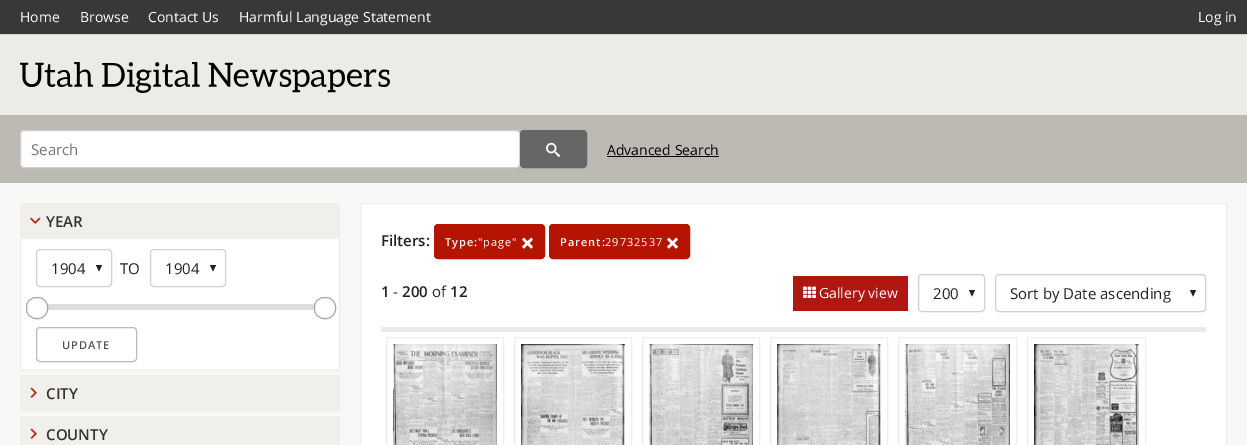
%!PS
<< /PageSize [1247 445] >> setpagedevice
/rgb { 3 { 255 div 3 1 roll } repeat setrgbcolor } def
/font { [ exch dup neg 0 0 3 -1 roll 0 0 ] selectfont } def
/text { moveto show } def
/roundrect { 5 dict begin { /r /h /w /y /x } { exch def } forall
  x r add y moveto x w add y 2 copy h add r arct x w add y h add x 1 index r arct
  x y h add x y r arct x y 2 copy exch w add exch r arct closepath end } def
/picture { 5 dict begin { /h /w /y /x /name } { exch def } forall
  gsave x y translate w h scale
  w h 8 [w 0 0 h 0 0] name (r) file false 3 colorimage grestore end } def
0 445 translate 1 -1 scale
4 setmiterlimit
248 248 247 rgb
0 0 1247 445 rectfill
56 55 57 rgb
0 0 1247 34 rectfill
237 235 231 rgb
0 35 1247 80 rectfill
216 210 201 rgb
0 34 1247 1 rectfill
(img_01.rgb) 20 62 370 31 picture
189 186 180 rgb
0 115 1247 68 rectfill
255 255 255 rgb
20.5 130.5 499 37 3.5 roundrect gsave fill grestore
209 209 209 rgb
stroke
102 102 102 rgb
520.5 130.5 66 37 3.5 roundrect gsave fill grestore
stroke
(img_02.rgb) 546 142 14 15 picture
0 0 0 rgb
607 156 112 1 rectfill
255 255 255 rgb
21 239 318 130 rectfill
238 238 238 rgb
20.5 203.5 319 166 rectstroke
240 239 236 rgb
21 204 318 35 rectfill
(img_03.rgb) 30 217 11 7 picture
34 34 34 rgb
96 265 moveto 3 6.5 rlineto 3 -6.5 rlineto fill
209 209 209 rgb
36.5 249.5 75 37 3.5 roundrect stroke
34 34 34 rgb
210 265 moveto 3 6.5 rlineto 3 -6.5 rlineto fill
209 209 209 rgb
150.5 249.5 75 37 3.5 roundrect stroke
221 221 221 rgb
47 304 268 6 rectfill
255 255 255 rgb
26.5 297.5 21 21 9.5 roundrect gsave fill grestore
167 167 167 rgb
stroke
255 255 255 rgb
314.5 297.5 21 21 9.5 roundrect gsave fill grestore
167 167 167 rgb
stroke
187 187 187 rgb
36.5 327.5 100 34 3.5 roundrect stroke
238 238 238 rgb
20.5 375.5 319 35 rectstroke
240 239 236 rgb
21 376 318 34 rectfill
(img_04.rgb) 30 387 7 11 picture
238 238 238 rgb
20.5 416.5 319 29 rectstroke
240 239 236 rgb
21 417 318 28 rectfill
(img_04.rgb) 30 428 7 11 picture
255 255 255 rgb
360.5 203.5 moveto 866 0 rlineto 0 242 rlineto -866 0 rlineto closepath gsave fill grestore
238 238 238 rgb
stroke
181 21 0 rgb
434.5 224.5 110 34 3.5 roundrect gsave fill grestore
stroke
(img_05.rgb) 522 237 11 12 picture
549.5 224.5 140 34 3.5 roundrect gsave fill grestore
stroke
(img_05.rgb) 667 237 11 12 picture
237 235 231 rgb
381 327 825 5 rectfill
176 22 18 rgb
793 276 115 35 rectfill
(img_06.rgb) 803 286 13 12 picture
34 34 34 rgb
969 290 moveto 3 6.5 rlineto 3 -6.5 rlineto fill
209 209 209 rgb
918.5 274.5 66 37 3.5 roundrect stroke
34 34 34 rgb
1190 290 moveto 3 6.5 rlineto 3 -6.5 rlineto fill
209 209 209 rgb
995.5 274.5 210 37 3.5 roundrect stroke
238 238 238 rgb
386.5 337.5 117 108 rectstroke
514.5 337.5 117 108 rectstroke
642.5 337.5 117 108 rectstroke
770.5 337.5 117 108 rectstroke
898.5 337.5 118 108 rectstroke
1027.5 337.5 118 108 rectstroke
(img_07.rgb) 393 344 104 101 picture
(img_08.rgb) 521 344 104 101 picture
(img_09.rgb) 649 344 104 101 picture
(img_10.rgb) 777 344 104 101 picture
(img_11.rgb) 905 344 105 101 picture
(img_12.rgb) 1034 344 105 101 picture
/OpenSans-Regular 14 font
255 255 255 rgb
(Home) 20 22 text
(Browse) 80 22 text
(Contact Us) 148 22 text
(Harmful Language Statement) 239 22 text
(Log in) 1198 22 text
/OpenSans-Regular 15 font
117 117 117 rgb
(Search) 31 155 text
/OpenSans-Regular 14 font
0 0 0 rgb
(Advanced Search) 607 155 text
/OpenSans-SemiBold 15 font
51 51 51 rgb
(YEAR) 46 227 text
/OpenSans-Regular 15 font
34 34 34 rgb
(1904) 51 274 text
(TO) 120 274 text
(1904) 165 274 text
/OpenSans-SemiBold 11 font
85 85 85 rgb
62 349 moveto 1 0 (UPDATE) ashow
/OpenSans-SemiBold 15 font
51 51 51 rgb
(CITY) 46 399 text
(COUNTY) 46 440 text
34 34 34 rgb
(Filters:) 381 246 text
/OpenSans-SemiBold 11 font
255 255 255 rgb
445 246 moveto 1 0 (Type:) ashow
/OpenSans-Regular 11 font
478 246 moveto 1 0 ("page") ashow
/OpenSans-SemiBold 11 font
560 246 moveto 1 0 (Parent:) ashow
/OpenSans-Regular 11 font
605 246 moveto 1 0 (29732537) ashow
/OpenSans-SemiBold 15 font
34 34 34 rgb
(1) 381 297 text
/OpenSans-Regular 15 font
(-) 393 297 text
/OpenSans-SemiBold 15 font
(200) 402 297 text
/OpenSans-Regular 15 font
(of) 432 297 text
/OpenSans-SemiBold 15 font
(12) 450 297 text
/OpenSans-Regular 14 font
255 255 255 rgb
(Gallery view) 819 298 text
/OpenSans-Regular 15 font
34 34 34 rgb
(200) 933 299 text
(Sort by Date ascending) 1010 299 text
showpage
